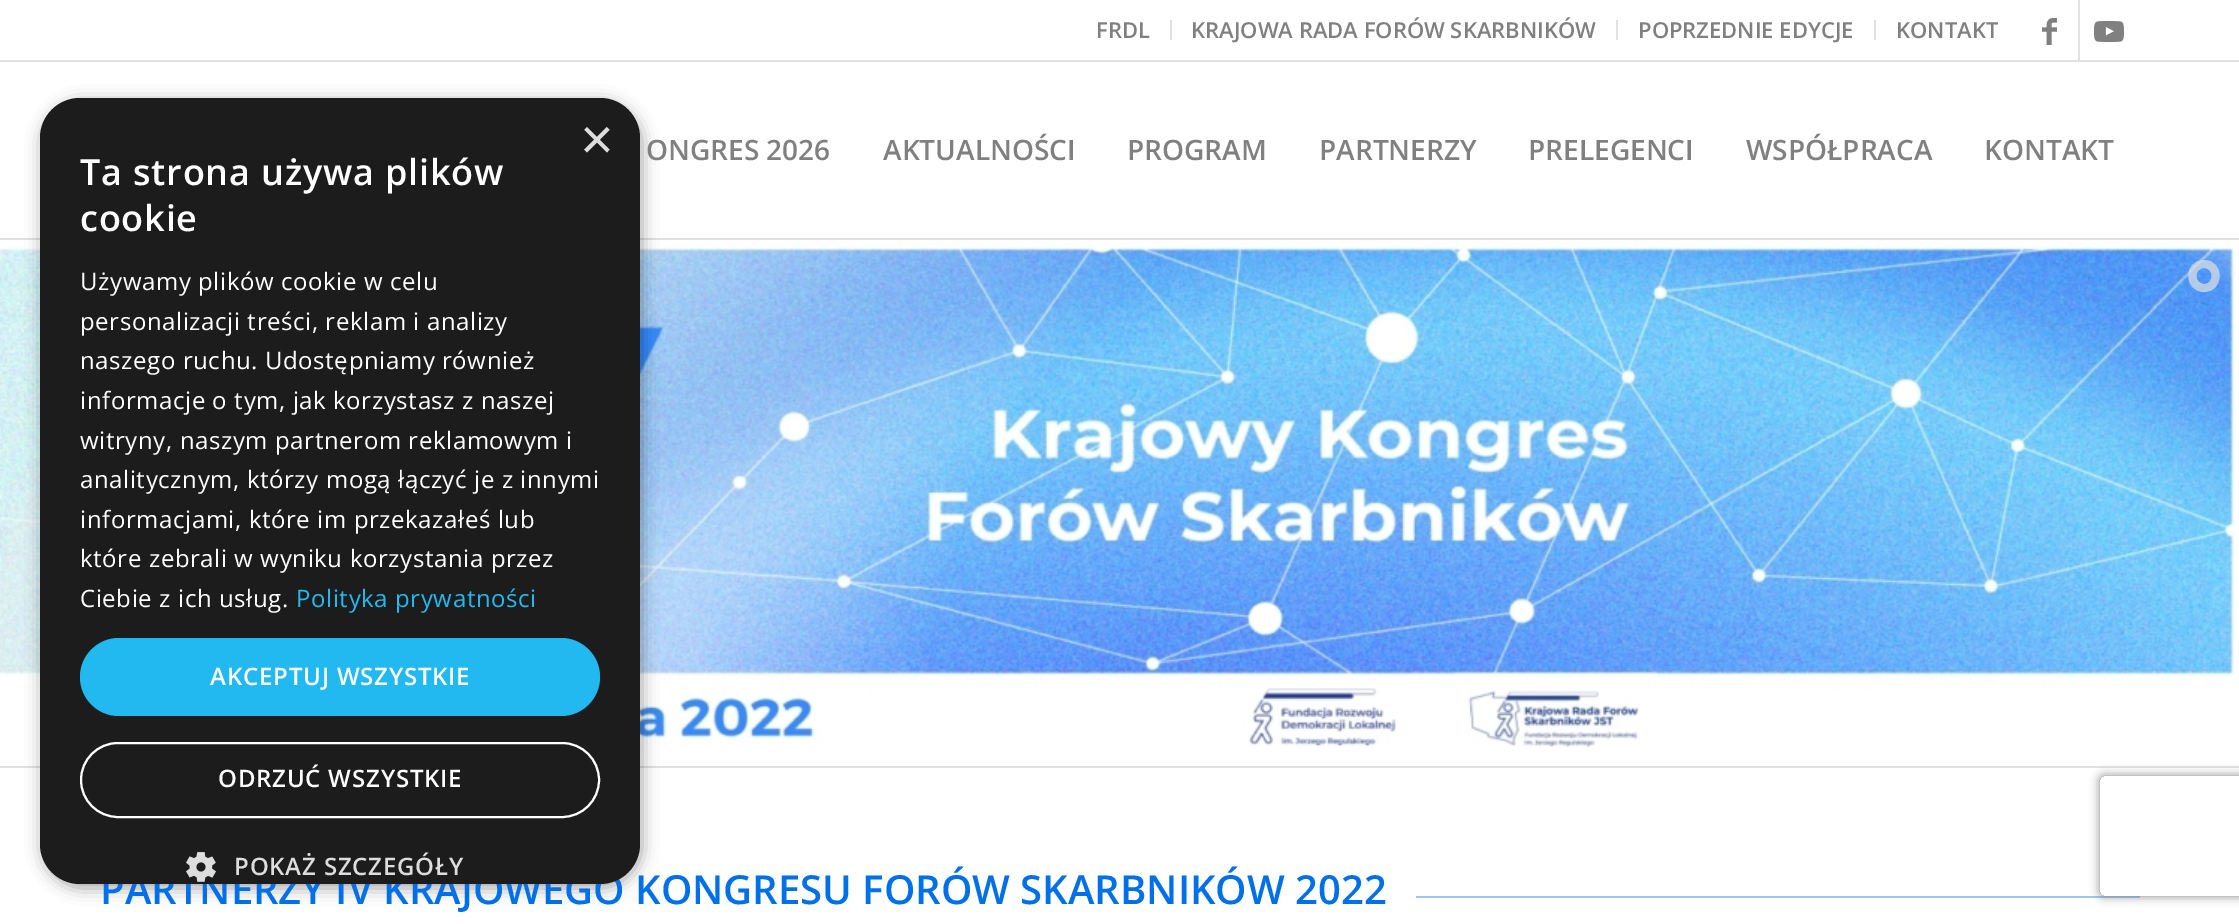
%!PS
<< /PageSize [2239 924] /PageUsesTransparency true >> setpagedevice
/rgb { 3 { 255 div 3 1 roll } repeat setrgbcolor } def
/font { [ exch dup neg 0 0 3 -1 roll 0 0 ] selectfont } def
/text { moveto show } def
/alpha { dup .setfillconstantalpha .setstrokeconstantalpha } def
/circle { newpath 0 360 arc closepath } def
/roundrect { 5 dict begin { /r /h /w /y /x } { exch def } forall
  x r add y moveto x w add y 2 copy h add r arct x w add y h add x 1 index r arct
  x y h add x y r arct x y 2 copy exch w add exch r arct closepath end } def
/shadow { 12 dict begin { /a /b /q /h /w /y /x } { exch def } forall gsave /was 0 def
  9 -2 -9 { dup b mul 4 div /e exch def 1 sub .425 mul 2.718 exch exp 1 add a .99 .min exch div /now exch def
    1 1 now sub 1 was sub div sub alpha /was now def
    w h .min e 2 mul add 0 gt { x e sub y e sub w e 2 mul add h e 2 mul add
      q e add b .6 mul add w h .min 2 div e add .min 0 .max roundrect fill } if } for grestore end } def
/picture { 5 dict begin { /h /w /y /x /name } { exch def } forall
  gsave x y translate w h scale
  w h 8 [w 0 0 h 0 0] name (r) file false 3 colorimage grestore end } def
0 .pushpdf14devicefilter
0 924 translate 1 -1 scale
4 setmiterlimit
255 255 255 rgb
0 0 2239 924 rectfill
225 225 225 rgb
0 60 2239 2 rectfill
1170 20 2 20 rectfill
1616 20 2 20 rectfill
1874 20 2 20 rectfill
2078 0 2 60 rectfill
(img_01.rgb) 2042 18 15 27 picture
(img_02.rgb) 2094 20 30 23 picture
0 238 2239 2 rectfill
(img_03.rgb) 0 240 2236 510 picture
0.13 alpha
8 setlinewidth
2204 276 12 circle stroke
gsave
2188 260 16 32 rectclip
0.65 alpha
2204 288 moveto -15.5 0 -15.5 -24 0 -24 rcurveto 15.5 0 15.5 24 0 24 rcurveto closepath stroke
grestore
gsave
2204 260 16 32 rectclip
0.65 alpha
2204 288 moveto -15.5 0 -15.5 -24 0 -24 rcurveto 15.5 0 15.5 24 0 24 rcurveto closepath stroke
grestore
1 alpha
0 766 2239 2 rectfill
153 198 246 rgb
1416 896 724 2 rectfill
0 0 0 rgb
42 102 600 786 40 8 0.35 shadow
gsave
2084 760 moveto 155 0 rlineto 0 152 rlineto -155 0 rlineto closepath 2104 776 moveto 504 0 rlineto 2 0 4 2 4 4 rcurveto 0 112 rlineto 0 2 -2 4 -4 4 rcurveto -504 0 rlineto -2 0 -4 -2 -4 -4 rcurveto 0 -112 rlineto 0 -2 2 -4 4 -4 rcurveto closepath eoclip newpath
128 128 128 rgb
2100 776 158 120 4 5 1 shadow
grestore
/OpenSans-SemiBold 22 font
128 128 128 rgb
(FRDL) 1096 38 text
(KRAJOWA RADA FORÓW SKARBNIKÓW) 1191 38 text
(POPRZEDNIE EDYCJE) 1638 38 text
(KONTAKT) 1896 38 text
/OpenSans-SemiBold 28 font
(ONGRES 2026) 646 160 text
(AKTUALNOŚCI) 883 160 text
(PROGRAM) 1127 160 text
(PARTNERZY) 1319 160 text
(PRELEGENCI) 1528 160 text
(WSPÓŁPRACA) 1746 160 text
(KONTAKT) 1984 160 text
/OpenSans-SemiBold 40 font
0 112 232 rgb
(PARTNERZY IV KRAJOWEGO KONGRESU FORÓW SKARBNIKÓW 2022) 100 904 text
28 28 28 rgb
40 98 600 786 40 roundrect fill
/LiberationSans-Regular 58 font
221 221 221 rgb
(×) 580 159 text
/OpenSans-SemiBold 36 font
255 255 255 rgb
80 185 moveto 0.8 0 (Ta strona używa plików) ashow
80 231 moveto 0.8 0 (cookie) ashow
/OpenSans-Regular 24 font
80 290 moveto 0.6 0 (Używamy plików cookie w celu) ashow
80 330 moveto 0.6 0 (personalizacji treści, reklam i analizy) ashow
80 369 moveto 0.6 0 (naszego ruchu. Udostępniamy również) ashow
80 409 moveto 0.6 0 (informacje o tym, jak korzystasz z naszej) ashow
80 449 moveto 0.6 0 (witryny, naszym partnerom reklamowym i) ashow
80 488 moveto 0.6 0 (analitycznym, którzy mogą łączyć je z innymi) ashow
80 528 moveto 0.6 0 (informacjami, które im przekazałeś lub) ashow
80 567 moveto 0.6 0 (które zebrali w wyniku korzystania przez) ashow
80 607 moveto 0.6 0 (Ciebie z ich usług.) ashow
34 184 240 rgb
296 607 moveto 0.6 0 (Polityka prywatności) ashow
80 638 520 78 39 roundrect fill
/OpenSans-SemiBold 24 font
255 255 255 rgb
210 685 moveto 0.8 0 (AKCEPTUJ WSZYSTKIE) ashow
2 setlinewidth
81 743 518 74 37 roundrect stroke
218 787 moveto 0.8 0 (ODRZUĆ WSZYSTKIE) ashow
(img_04.rgb) 186 852 30 30 picture
221 221 221 rgb
234 875 moveto 0.8 0 (POKAŻ SZCZEGÓŁY) ashow
.poppdf14devicefilter showpage
